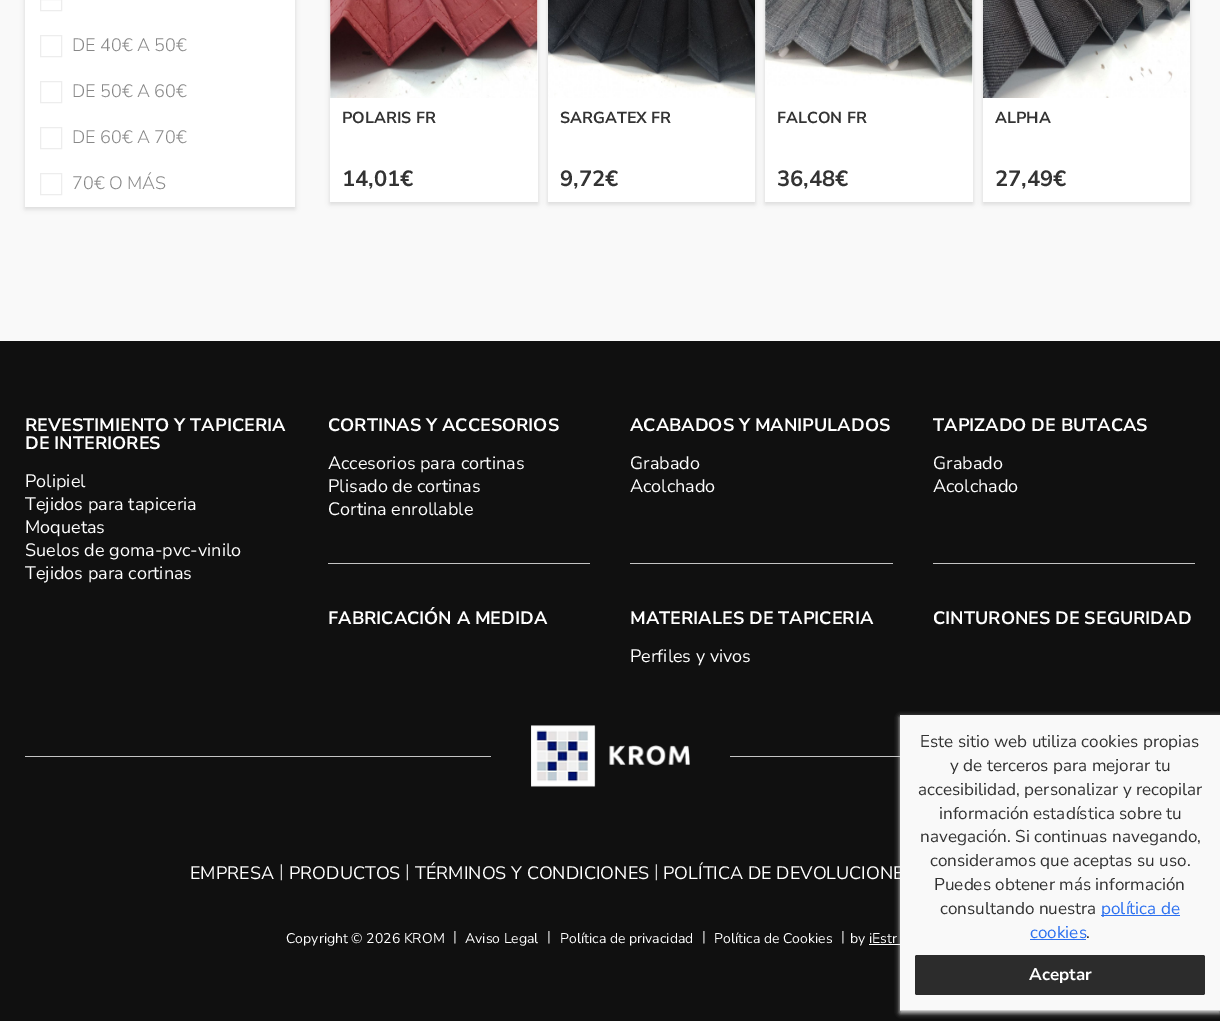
%!PS
<< /PageSize [1220 1021] /PageUsesTransparency true >> setpagedevice
/rgb { 3 { 255 div 3 1 roll } repeat setrgbcolor } def
/font { [ exch dup neg 0 0 3 -1 roll 0 0 ] selectfont } def
/text { moveto show } def
/alpha { dup .setfillconstantalpha .setstrokeconstantalpha } def
/roundrect { 5 dict begin { /r /h /w /y /x } { exch def } forall
  x r add y moveto x w add y 2 copy h add r arct x w add y h add x 1 index r arct
  x y h add x y r arct x y 2 copy exch w add exch r arct closepath end } def
/shadow { 12 dict begin { /a /b /q /h /w /y /x } { exch def } forall gsave /was 0 def
  9 -2 -9 { dup b mul 4 div /e exch def 1 sub .425 mul 2.718 exch exp 1 add a .99 .min exch div /now exch def
    1 1 now sub 1 was sub div sub alpha /was now def
    w h .min e 2 mul add 0 gt { x e sub y e sub w e 2 mul add h e 2 mul add
      q e add b .6 mul add w h .min 2 div e add .min 0 .max roundrect fill } if } for grestore end } def
/picture { 5 dict begin { /h /w /y /x /name } { exch def } forall
  gsave x y translate w h scale
  w h 8 [w 0 0 h 0 0] name (r) file false 3 colorimage grestore end } def
0 .pushpdf14devicefilter
0 1021 translate 1 -1 scale
4 setmiterlimit
249 249 249 rgb
0 0 1220 1021 rectfill
216 216 216 rgb
25 -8 270 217 0 2.5 1 shadow
255 255 255 rgb
25 0 270 207 rectfill
237 237 237 rgb
40.5 -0.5 21 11 rectstroke
40.5 35.5 21 21 rectstroke
40.5 81.5 21 21 rectstroke
40.5 127.5 21 21 rectstroke
40.5 173.5 21 21 rectstroke
216 216 216 rgb
330 -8 208 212 0 2.5 1 shadow
255 255 255 rgb
330 0 208 202 rectfill
(img_01.rgb) 330 0 208 98 picture
216 216 216 rgb
548 -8 207 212 0 2.5 1 shadow
255 255 255 rgb
548 98 207 104 rectfill
(img_02.rgb) 548 0 207 98 picture
216 216 216 rgb
765 -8 208 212 0 2.5 1 shadow
255 255 255 rgb
765 0 208 202 rectfill
(img_03.rgb) 765 0 208 86 picture
216 216 216 rgb
983 -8 207 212 0 2.5 1 shadow
255 255 255 rgb
983 98 207 104 rectfill
(img_04.rgb) 983 0 207 98 picture
16 16 16 rgb
0 341 1220 680 rectfill
196 196 196 rgb
328 563 262 1 rectfill
630 563 263 1 rectfill
933 563 262 1 rectfill
25 756 875 1 rectfill
16 16 16 rgb
491 756 239 1 rectfill
(img_05.rgb) 531 725 159 62 picture
255 255 255 rgb
869 944 31 1 rectfill
216 216 216 rgb
900 717 320 296 0 2.5 1 shadow
204 204 204 rgb
900 1010 320 1 rectfill
/NunitoSans-Light 18 font
136 136 136 rgb
(DE 40€ A 50€) 72 51 text
(DE 50€ A 60€) 72 97 text
(DE 60€ A 70€) 72 143 text
(70€ O MÁS) 72 189 text
/NunitoSans-Bold 16 font
51 51 51 rgb
(POLARIS FR) 342 123 text
/NunitoSans-Bold 22 font
(14,01€) 342 186 text
/NunitoSans-Bold 16 font
(SARGATEX FR) 560 123 text
/NunitoSans-Bold 22 font
(9,72€) 560 186 text
/NunitoSans-Bold 16 font
(FALCON FR) 777 123 text
/NunitoSans-Bold 22 font
(36,48€) 777 186 text
/NunitoSans-Bold 16 font
(ALPHA) 995 123 text
/NunitoSans-Bold 22 font
(27,49€) 995 186 text
/NunitoSans-Bold 18 font
255 255 255 rgb
(REVESTIMIENTO Y TAPICERIA) 25 431 text
(DE INTERIORES) 25 449 text
/NunitoSans-Regular 18 font
(Polipiel) 25 487 text
(Tejidos para tapiceria) 25 510 text
(Moquetas) 25 533 text
(Suelos de goma-pvc-vinilo) 25 556 text
(Tejidos para cortinas) 25 579 text
/NunitoSans-Bold 18 font
(CORTINAS Y ACCESORIOS) 328 431 text
/NunitoSans-Regular 18 font
(Accesorios para cortinas) 328 469 text
(Plisado de cortinas) 328 492 text
(Cortina enrollable) 328 515 text
/NunitoSans-Bold 18 font
(ACABADOS Y MANIPULADOS) 630 431 text
/NunitoSans-Regular 18 font
(Grabado) 630 469 text
(Acolchado) 630 492 text
/NunitoSans-Bold 18 font
(TAPIZADO DE BUTACAS) 933 431 text
/NunitoSans-Regular 18 font
(Grabado) 933 469 text
(Acolchado) 933 492 text
/NunitoSans-Bold 18 font
(FABRICACIÓN A MEDIDA) 328 624 text
(MATERIALES DE TAPICERIA) 630 624 text
/NunitoSans-Regular 18 font
(Perfiles y vivos) 630 662 text
/NunitoSans-Bold 18 font
(CINTURONES DE SEGURIDAD) 933 624 text
/NunitoSans-Regular 18 font
(EMPRESA) 190 879 text
213 213 213 rgb
(|) 279 877 text
255 255 255 rgb
(PRODUCTOS) 289 879 text
213 213 213 rgb
(|) 405 877 text
255 255 255 rgb
(TÉRMINOS Y CONDICIONES) 415 879 text
213 213 213 rgb
(|) 654 877 text
255 255 255 rgb
(POLÍTICA DE DEVOLUCIONE) 663 879 text
/NunitoSans-Regular 14 font
(Copyright © 2026 KROM) 286 943 text
213 213 213 rgb
(|) 453 941 text
255 255 255 rgb
(Aviso Legal) 465 943 text
213 213 213 rgb
(|) 547 941 text
255 255 255 rgb
(Política de privacidad) 560 943 text
213 213 213 rgb
(|) 702 941 text
255 255 255 rgb
(Política de Cookies) 714 943 text
213 213 213 rgb
(|) 841 941 text
255 255 255 rgb
(by iEstr) 850 943 text
249 249 249 rgb
900 715 320 295 rectfill
/NunitoSans-Regular 17.1 font
51 51 51 rgb
(Este sitio web utiliza cookies propias) 920 747 text
(y de terceros para mejorar tu) 950 771 text
(accesibilidad, personalizar y recopilar) 918 795 text
(información estadística sobre tu) 939 819 text
(navegación. Si continuas navegando,) 920 842 text
(consideramos que aceptas su uso.) 930 866 text
(Puedes obtener más información) 934 890 text
(consultando nuestra) 940 914 text
45 113 240 rgb
1101 915 79 1 rectfill
(política de) 1101 914 text
(cookies) 1030 938 text
1030 939 56 1 rectfill
51 51 51 rgb
(.) 1086 938 text
44 44 44 rgb
915 955 290 40 2 roundrect fill
/NunitoSans-Bold 17.1 font
255 255 255 rgb
(Aceptar) 1029 980 text
.poppdf14devicefilter showpage
